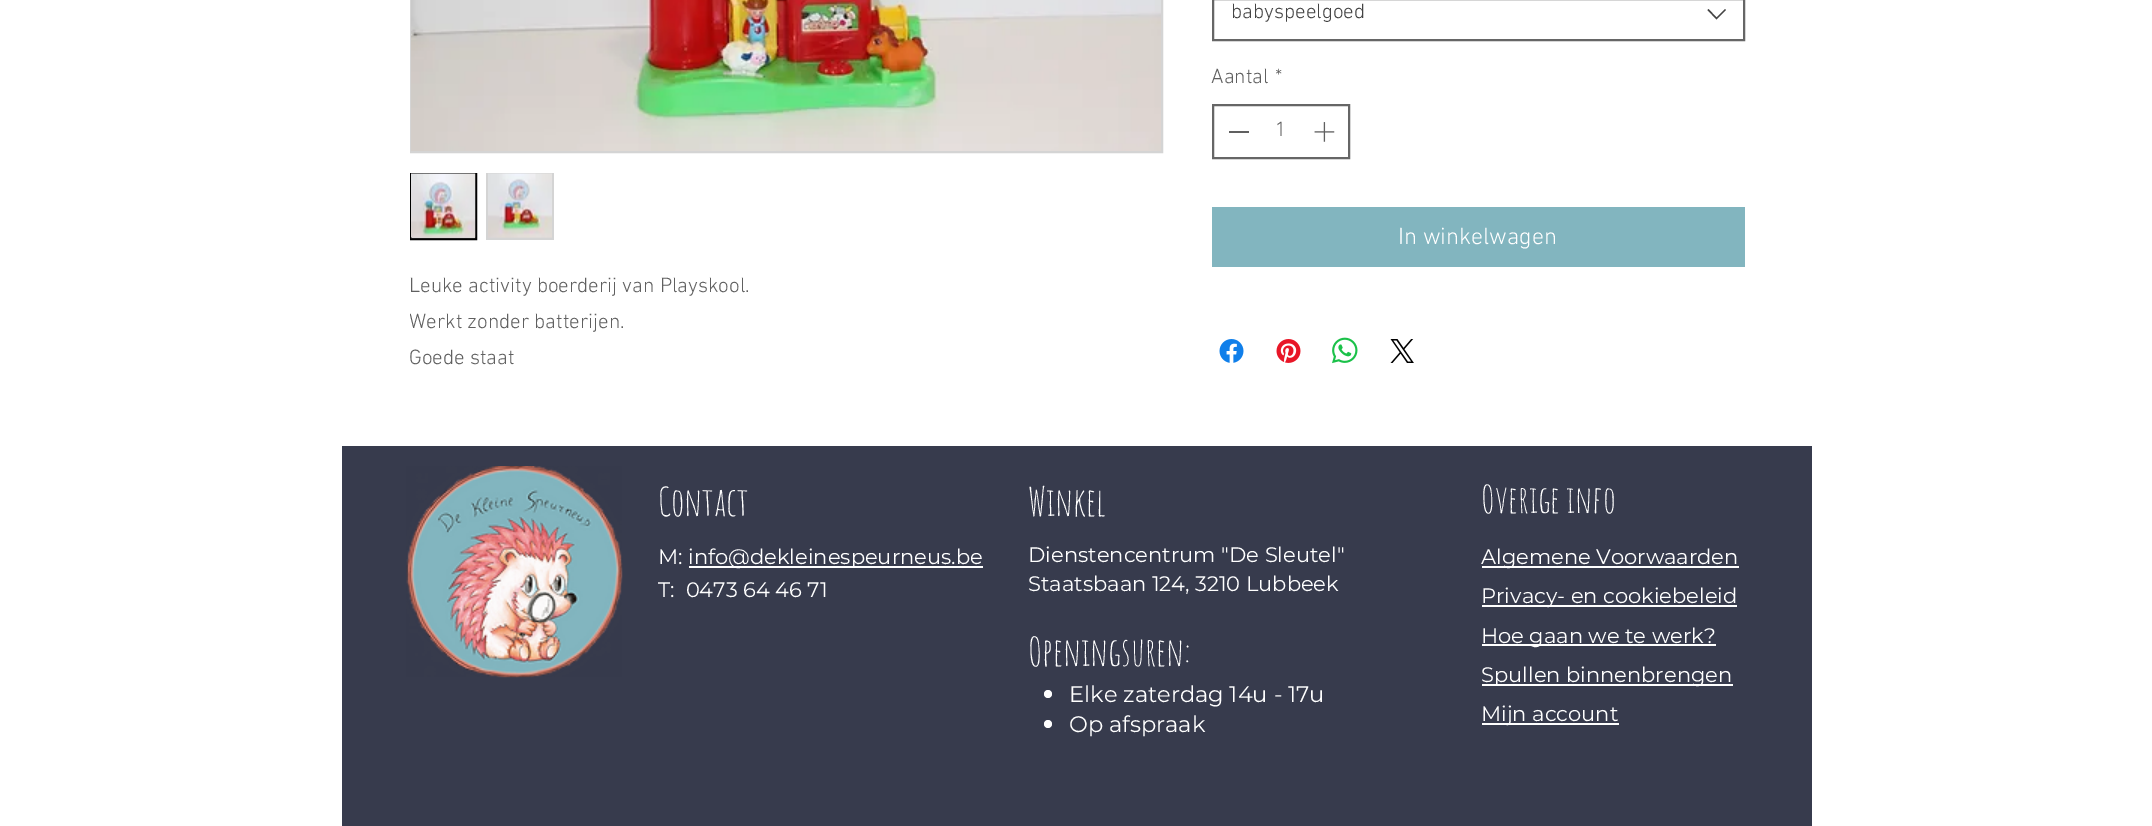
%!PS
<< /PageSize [2152 826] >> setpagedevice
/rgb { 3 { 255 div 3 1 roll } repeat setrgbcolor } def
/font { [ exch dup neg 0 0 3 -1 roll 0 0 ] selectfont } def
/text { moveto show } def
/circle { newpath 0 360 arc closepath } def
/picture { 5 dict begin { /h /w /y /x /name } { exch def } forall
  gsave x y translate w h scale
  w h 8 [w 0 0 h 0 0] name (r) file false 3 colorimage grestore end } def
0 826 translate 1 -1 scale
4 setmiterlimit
255 255 255 rgb
0 0 2152 826 rectfill
102 102 102 rgb
2 setlinewidth
1213 -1 531 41 rectstroke
68 68 68 rgb
1725 9 moveto 1 1 rlineto -9.5 9.5 rlineto -9 -9.5 rlineto 1 -1 rlineto 8 8.5 rlineto closepath eofill
102 102 102 rgb
1213 105 136 53 rectstroke
96 96 96 rgb
1229 131 20 2 rectfill
(img_01.rgb) 1314 122 21 20 picture
130 181 191 rgb
1212 207 533 60 rectfill
(img_02.rgb) 1219 339 25 24 picture
(img_03.rgb) 1276 339 25 24 picture
(img_04.rgb) 1332 337 26 27 picture
(img_05.rgb) 1390 339 24 24 picture
212 212 212 rgb
411 -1 751 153 rectstroke
(img_06.rgb) 411 0 750 151 picture
412 237 63 1 rectfill
0 0 0 rgb
411 174 65 65 rectstroke
(img_07.rgb) 411 173 65 66 picture
212 212 212 rgb
486 173 68 67 rectfill
(img_08.rgb) 488 173 64 65 picture
55 59 77 rgb
342 446 1470 380 rectfill
(img_09.rgb) 406 466 217 212 picture
255 255 255 rgb
689 566 294 2 rectfill
1048 694 4 circle fill
1048 724 4 circle fill
1482 566 257 2 rectfill
1482 605 255 2 rectfill
1482 644 234 2 rectfill
1482 684 251 2 rectfill
1482 723 137 2 rectfill
/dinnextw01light-Light 21 font
68 68 68 rgb
(babyspeelgoed) 1231 18 text
96 96 96 rgb
(Aantal) 1211 83 text
(*) 1275 83 text
(1) 1275 136 text
/dinnextw01light-Light 24 font
255 255 255 rgb
(In winkelwagen) 1398 244 text
/dinnextw01light-Light 21 font
96 96 96 rgb
(Leuke activity boerderij van Playskool.) 409 292 text
gsave
410 270 340 108 rectclip
(Werkt zonder batterijen.) 409 328 text
grestore
(Goede staat) 409 364 text
/AmaticSC-Regular 39 font
255 255 255 rgb
(Contact) 658 516 text
/Montserrat-Regular 21 font
(M:) 658 564 text
(info@dekleinespeurneus.be) 688 564 text
(T:  0473 64 46 71) 658 597 text
/AmaticSC-Regular 39 font
(Winkel) 1028 516 text
/Montserrat-Regular 21 font
(Dienstencentrum "De Sleutel") 1028 562 text
(Staatsbaan 124, 3210 Lubbeek) 1028 591 text
/AmaticSC-Regular 39 font
(Openingsuren:) 1028 666 text
/Montserrat-Regular 22.5 font
(Elke zaterdag 14u - 17u) 1069 702 text
(Op afspraak) 1069 732 text
/AmaticSC-Regular 37.5 font
(Overige info) 1481 513 text
/Montserrat-Regular 21 font
(Algemene Voorwaarden) 1481 564 text
(Privacy- en cookiebeleid) 1481 603 text
(Hoe gaan we te werk?) 1481 643 text
(Spullen binnenbrengen) 1481 682 text
(Mijn account) 1481 721 text
showpage
